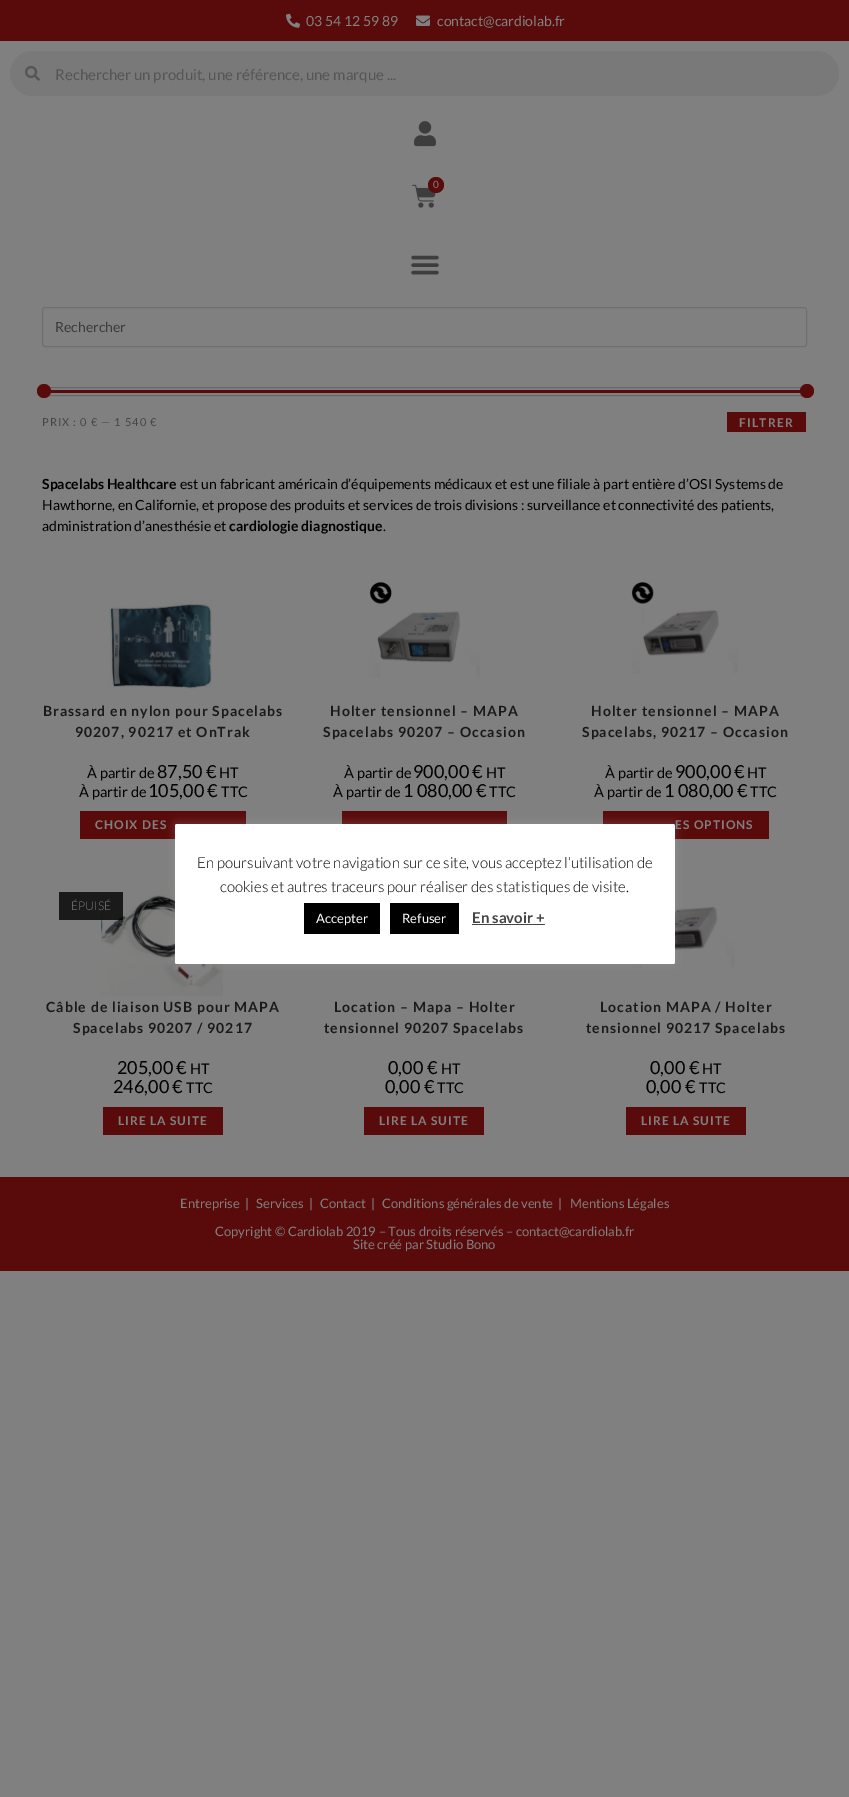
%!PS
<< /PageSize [849 1797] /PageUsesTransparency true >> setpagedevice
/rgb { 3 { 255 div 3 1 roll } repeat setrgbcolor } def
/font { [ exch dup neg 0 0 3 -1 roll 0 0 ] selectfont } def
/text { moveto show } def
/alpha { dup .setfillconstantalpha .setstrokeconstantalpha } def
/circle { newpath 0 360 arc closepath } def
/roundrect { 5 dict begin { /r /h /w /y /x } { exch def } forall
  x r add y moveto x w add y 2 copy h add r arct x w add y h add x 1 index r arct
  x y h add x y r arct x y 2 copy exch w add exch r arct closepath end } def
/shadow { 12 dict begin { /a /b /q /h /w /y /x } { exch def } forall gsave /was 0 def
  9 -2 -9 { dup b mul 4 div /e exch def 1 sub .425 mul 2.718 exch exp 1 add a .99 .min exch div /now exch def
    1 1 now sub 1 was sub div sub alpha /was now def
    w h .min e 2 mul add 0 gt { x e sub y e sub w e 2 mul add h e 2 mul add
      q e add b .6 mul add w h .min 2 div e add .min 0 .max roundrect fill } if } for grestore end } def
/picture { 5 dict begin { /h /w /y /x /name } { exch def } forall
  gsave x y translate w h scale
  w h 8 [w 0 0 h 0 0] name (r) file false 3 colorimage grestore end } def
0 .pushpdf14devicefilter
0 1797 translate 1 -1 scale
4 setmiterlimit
128 128 128 rgb
0 0 849 1797 rectfill
89 10 10 rgb
0 0 849 41 rectfill
(img_01.rgb) 286 13 14 15 picture
(img_02.rgb) 416 15 14 11 picture
121 121 122 rgb
10 51 829 45 22.5 roundrect fill
(img_03.rgb) 25 65 15 16 picture
(img_04.rgb) 414 121 22 26 picture
(img_05.rgb) 412 184 24 24 picture
89 10 10 rgb
436 185 8 circle fill
(img_06.rgb) 411 255 28 20 picture
111 111 111 rgb
42.5 307.5 764 39 2.5 roundrect stroke
104 104 104 rgb
42.5 387.5 764 8 rectstroke
89 10 10 rgb
43 390 763 3 rectfill
44 391 7 circle fill
807 391 7 circle fill
727 412 79 20 rectfill
(img_07.rgb) 109 602 103 87 picture
80 811 166 28 rectfill
(img_08.rgb) 369 582 111 96 picture
342 811 165 13 rectfill
(img_09.rgb) 631 582 107 92 picture
603 811 166 28 rectfill
(img_10.rgb) 101 872 122 124 picture
0.8 alpha
0 0 0 rgb
59 892 64 28 rectfill
1 alpha
89 10 10 rgb
103 1107 120 28 rectfill
364 1107 120 28 rectfill
(img_11.rgb) 632 880 103 88 picture
626 1107 120 28 rectfill
0 1177 849 94 rectfill
172 171 171 rgb
175 823 500 140 2 5 0.3 shadow
255 255 255 rgb
175 824 500 140 2 roundrect fill
0 0 0 rgb
304 903 76 31 rectfill
390 903 69 31 rectfill
68 68 68 rgb
472 924 73 1 rectfill
/Lato-Regular 14 font
128 128 128 rgb
(03 54 12 59 89) 306 26 text
(contact@cardiolab.fr) 437 26 text
/Lato-Regular 15 font
85 85 85 rgb
(Rechercher un produit, une référence, une marque ...) 55 80 text
/Lato-Regular 10 font
128 128 128 rgb
(0) 433 188 text
/Lato-Regular 14 font
59 59 59 rgb
(Rechercher) 55 332 text
/Lato-Regular 11 font
69 69 69 rgb
42 426 moveto 1 0 (PRIX : 0 € — 1 540 €) ashow
/Lato-Bold 12 font
128 128 128 rgb
739 427 moveto 1.25 0 (FILTRER) ashow
/Lato-Bold 14 font
0 0 0 rgb
(Spacelabs Healthcare) 42 489 text
/Lato-Regular 14 font
(est un fabricant américain d’équipements médicaux et est une filiale à part entière d’OSI Systems de) 180 489 text
(Hawthorne, en Californie, et propose des produits et services de trois divisions : surveillance et connectivité des patients,) 42 510 text
(administration d’anesthésie et) 42 531 text
/Lato-Bold 14 font
(cardiologie diagnostique) 229 531 text
/Lato-Regular 14 font
(.) 383 531 text
/Lato-Bold 14 font
26 26 26 rgb
43 716 moveto 1 0 (Brassard en nylon pour Spacelabs) ashow
75 737 moveto 1 0 (90207, 90217 et OnTrak) ashow
/Lato-Regular 14.5 font
0 0 0 rgb
(À partir de) 87 778 text
/Lato-Regular 18 font
(87,50 €) 157 778 text
/Lato-Regular 14.5 font
(HT) 219 778 text
(À partir de) 79 797 text
/Lato-Regular 18 font
(105,00 €) 148 797 text
/Lato-Regular 14.5 font
(TTC) 221 797 text
/Lato-Bold 12 font
128 128 128 rgb
95 829 moveto 1 0 (CHOIX DES) ashow
/Lato-Bold 14 font
26 26 26 rgb
330 716 moveto 1 0 (Holter tensionnel – MAPA) ashow
323 737 moveto 1 0 (Spacelabs 90207 – Occasion) ashow
/Lato-Regular 14.5 font
0 0 0 rgb
(À partir de) 344 778 text
/Lato-Regular 18 font
(900,00 €) 413 778 text
/Lato-Regular 14.5 font
(HT) 486 778 text
(À partir de) 333 797 text
/Lato-Regular 18 font
(1 080,00 €) 403 797 text
/Lato-Regular 14.5 font
(TTC) 489 797 text
/Lato-Bold 14 font
26 26 26 rgb
591 716 moveto 1 0 (Holter tensionnel – MAPA) ashow
582 737 moveto 1 0 (Spacelabs, 90217 – Occasion) ashow
/Lato-Regular 14.5 font
0 0 0 rgb
(À partir de) 605 778 text
/Lato-Regular 18 font
(900,00 €) 675 778 text
/Lato-Regular 14.5 font
(HT) 747 778 text
(À partir de) 594 797 text
/Lato-Regular 18 font
(1 080,00 €) 664 797 text
/Lato-Regular 14.5 font
(TTC) 750 797 text
/Lato-Bold 12 font
128 128 128 rgb
675 829 moveto 1 0 (ES OPTIONS) ashow
/Lato-Light 12 font
(ÉPUISÉ) 71 910 text
/Lato-Bold 14 font
26 26 26 rgb
46 1012 moveto 1 0 (Câble de liaison USB pour MAPA) ashow
73 1033 moveto 1 0 (Spacelabs 90207 / 90217) ashow
/Lato-Regular 18 font
0 0 0 rgb
(205,00 €) 117 1074 text
/Lato-Regular 14.5 font
(HT) 190 1074 text
/Lato-Regular 18 font
(246,00 €) 113 1093 text
/Lato-Regular 14.5 font
(TTC) 186 1093 text
/Lato-Bold 12 font
128 128 128 rgb
118 1125 moveto 1 0 (LIRE LA SUITE) ashow
/Lato-Bold 14 font
26 26 26 rgb
334 1012 moveto 1 0 (Location – Mapa – Holter) ashow
324 1033 moveto 1 0 (tensionnel 90207 Spacelabs) ashow
/Lato-Regular 18 font
0 0 0 rgb
(0,00 €) 388 1074 text
/Lato-Regular 14.5 font
(HT) 441 1074 text
/Lato-Regular 18 font
(0,00 €) 385 1093 text
/Lato-Regular 14.5 font
(TTC) 437 1093 text
/Lato-Bold 12 font
128 128 128 rgb
379 1125 moveto 1 0 (LIRE LA SUITE) ashow
/Lato-Bold 14 font
26 26 26 rgb
600 1012 moveto 1 0 (Location MAPA / Holter) ashow
586 1033 moveto 1 0 (tensionnel 90217 Spacelabs) ashow
/Lato-Regular 18 font
0 0 0 rgb
(0,00 €) 650 1074 text
/Lato-Regular 14.5 font
(HT) 702 1074 text
/Lato-Regular 18 font
(0,00 €) 646 1093 text
/Lato-Regular 14.5 font
(TTC) 699 1093 text
/Lato-Bold 12 font
128 128 128 rgb
641 1125 moveto 1 0 (LIRE LA SUITE) ashow
/Lato-Regular 13 font
(Entreprise) 180 1208 text
(|) 245 1208 text
(Services) 256 1208 text
(|) 309 1208 text
(Contact) 320 1208 text
(|) 371 1208 text
(Conditions générales de vente) 382 1208 text
(|) 558 1208 text
(Mentions Légales) 570 1208 text
(Copyright © Cardiolab 2019 – Tous droits réservés – contact@cardiolab.fr) 215 1236 text
(Site créé par Studio Bono) 353 1249 text
/Lato-Light 15 font
0 0 0 rgb
(En poursuivant votre navigation sur ce site, vous acceptez l’utilisation de) 197 868 text
(cookies et autres traceurs pour réaliser des statistiques de visite.) 220 892 text
/Lato-Regular 13 font
255 255 255 rgb
(Accepter) 316 923 text
(Refuser) 402 923 text
/Lato-Bold 15 font
69 69 69 rgb
(En savoir +) 472 923 text
.poppdf14devicefilter showpage
